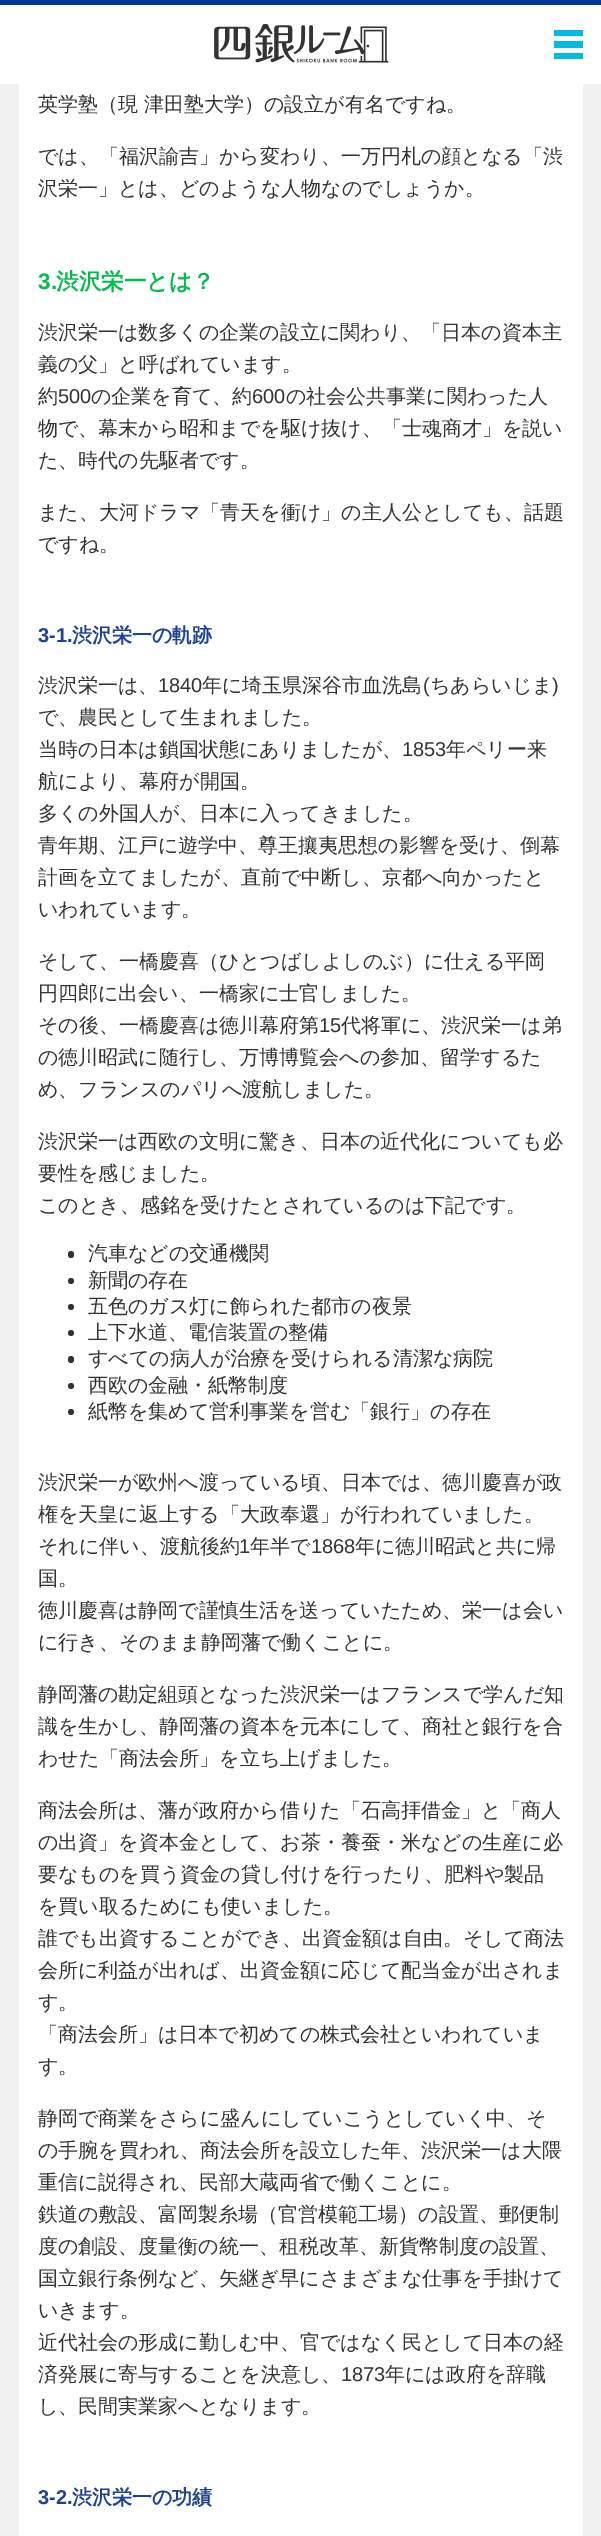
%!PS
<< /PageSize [601 2536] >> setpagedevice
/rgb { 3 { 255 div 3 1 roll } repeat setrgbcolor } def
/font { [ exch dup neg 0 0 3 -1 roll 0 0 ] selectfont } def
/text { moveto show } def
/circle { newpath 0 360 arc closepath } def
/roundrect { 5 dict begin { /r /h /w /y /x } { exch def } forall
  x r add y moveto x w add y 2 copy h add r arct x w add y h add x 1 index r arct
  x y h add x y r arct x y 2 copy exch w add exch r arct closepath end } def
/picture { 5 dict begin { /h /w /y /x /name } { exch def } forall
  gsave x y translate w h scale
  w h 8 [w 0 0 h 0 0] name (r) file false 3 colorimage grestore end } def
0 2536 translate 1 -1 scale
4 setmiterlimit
241 241 241 rgb
0 0 601 2536 rectfill
255 255 255 rgb
0 5 601 79 rectfill
0 55 149 rgb
0 0 601 5 rectfill
(img_01.rgb) 214 24 175 39 picture
0 187 224 rgb
554 30 29 6 rectfill
554 41 29 7 rectfill
554 53 29 6 rectfill
255 255 255 rgb
19 84 564 2452 rectfill
51 51 51 rgb
68 1251 6 7 3 roundrect fill
71 1281 3 circle fill
71 1307 3 circle fill
71 1333 3 circle fill
68 1356 6 7 3 roundrect fill
71 1386 3 circle fill
71 1412 3 circle fill
/WenQuanYiZenHei-Medium 20 font
(英学塾（現 津田塾大学）の設立が有名ですね。) 38 111 text
(では、「福沢諭吉」から変わり、一万円札の顔となる「渋) 38 163 text
(沢栄一」とは、どのような人物なのでしょうか。) 38 195 text
/LiberationSans-Bold 22.5 font
0 188 75 rgb
(3.) 38 289 text
/WenQuanYiZenHei-Bold 22.5 font
(渋沢栄一とは？) 56 289 text
/WenQuanYiZenHei-Medium 20 font
51 51 51 rgb
(渋沢栄一は数多くの企業の設立に関わり、「日本の資本主) 38 339 text
(義の父」と呼ばれています。) 38 371 text
(約) 38 403 text
/LiberationSans-Regular 20 font
(500) 58 403 text
/WenQuanYiZenHei-Medium 20 font
(の企業を育て、約) 91 403 text
/LiberationSans-Regular 20 font
(600) 252 403 text
/WenQuanYiZenHei-Medium 20 font
(の社会公共事業に関わった人) 286 403 text
(物で、幕末から昭和までを駆け抜け、「士魂商才」を説い) 38 435 text
(た、時代の先駆者です。) 38 467 text
(また、大河ドラマ「青天を衝け」の主人公としても、話題) 38 519 text
(ですね。) 38 551 text
/LiberationSans-Bold 20 font
29 65 148 rgb
(3-1.) 38 642 text
/WenQuanYiZenHei-Bold 20 font
(渋沢栄一の軌跡) 72 642 text
/WenQuanYiZenHei-Medium 20 font
51 51 51 rgb
(渋沢栄一は、) 38 692 text
/LiberationSans-Regular 20 font
(1840) 158 692 text
/WenQuanYiZenHei-Medium 20 font
(年に埼玉県深谷市血洗島) 202 692 text
/LiberationSans-Regular 20 font
(\() 423 692 text
/WenQuanYiZenHei-Medium 20 font
(ちあらいじま) 430 692 text
/LiberationSans-Regular 20 font
(\)) 552 692 text
/WenQuanYiZenHei-Medium 20 font
(で、農民として生まれました。) 38 724 text
(当時の日本は鎖国状態にありましたが、) 38 756 text
/LiberationSans-Regular 20 font
(1853) 402 756 text
/WenQuanYiZenHei-Medium 20 font
(年ペリー来) 446 756 text
(航により、幕府が開国。) 38 788 text
(多くの外国人が、日本に入ってきました。) 38 820 text
(青年期、江戸に遊学中、尊王攘夷思想の影響を受け、倒幕) 38 852 text
(計画を立てましたが、直前で中断し、京都へ向かったと) 38 884 text
(いわれています。) 38 916 text
(そして、一橋慶喜（ひとつばしよしのぶ）に仕える平岡) 38 968 text
(円四郎に出会い、一橋家に士官しました。) 38 1000 text
(その後、一橋慶喜は徳川幕府第) 38 1032 text
/LiberationSans-Regular 20 font
(15) 319 1032 text
/WenQuanYiZenHei-Medium 20 font
(代将軍に、渋沢栄一は弟) 341 1032 text
(の徳川昭武に随行し、万博博覧会への参加、留学するた) 38 1064 text
(め、フランスのパリへ渡航しました。) 38 1096 text
(渋沢栄一は西欧の文明に驚き、日本の近代化についても必) 38 1148 text
(要性を感じました。) 38 1180 text
(このとき、感銘を受けたとされているのは下記です。) 38 1212 text
(汽車などの交通機関) 88 1260 text
(新聞の存在) 88 1287 text
(五色のガス灯に飾られた都市の夜景) 88 1313 text
(上下水道、電信装置の整備) 88 1339 text
(すべての病人が治療を受けられる清潔な病院) 88 1365 text
(西欧の金融・紙幣制度) 88 1392 text
(紙幣を集めて営利事業を営む「銀行」の存在) 88 1418 text
(渋沢栄一が欧州へ渡っている頃、日本では、徳川慶喜が政) 38 1489 text
(権を天皇に返上する「大政奉還」が行われていました。) 38 1521 text
(それに伴い、渡航後約) 38 1553 text
/LiberationSans-Regular 20 font
(1) 239 1553 text
/WenQuanYiZenHei-Medium 20 font
(年半で) 250 1553 text
/LiberationSans-Regular 20 font
(1868) 311 1553 text
/WenQuanYiZenHei-Medium 20 font
(年に徳川昭武と共に帰) 355 1553 text
(国。) 38 1585 text
(徳川慶喜は静岡で謹慎生活を送っていたため、栄一は会い) 38 1617 text
(に行き、そのまま静岡藩で働くことに。) 38 1649 text
(静岡藩の勘定組頭となった渋沢栄一はフランスで学んだ知) 38 1701 text
(識を生かし、静岡藩の資本を元本にして、商社と銀行を合) 38 1733 text
(わせた「商法会所」を立ち上げました。) 38 1765 text
(商法会所は、藩が政府から借りた「石高拝借金」と「商人) 38 1817 text
(の出資」を資本金として、お茶・養蚕・米などの生産に必) 38 1849 text
(要なものを買う資金の貸し付けを行ったり、肥料や製品) 38 1881 text
(を買い取るためにも使いました。) 38 1913 text
(誰でも出資することができ、出資金額は自由。そして商法) 38 1945 text
(会所に利益が出れば、出資金額に応じて配当金が出されま) 38 1977 text
(す。) 38 2009 text
(「商法会所」は日本で初めての株式会社といわれていま) 38 2041 text
(す。) 38 2073 text
(静岡で商業をさらに盛んにしていこうとしていく中、そ) 38 2125 text
(の手腕を買われ、商法会所を設立した年、渋沢栄一は大隈) 38 2157 text
(重信に説得され、民部大蔵両省で働くことに。) 38 2189 text
(鉄道の敷設、富岡製糸場（官営模範工場）の設置、郵便制) 38 2221 text
(度の創設、度量衡の統一、租税改革、新貨幣制度の設置、) 38 2253 text
(国立銀行条例など、矢継ぎ早にさまざまな仕事を手掛けて) 38 2285 text
(いきます。) 38 2317 text
(近代社会の形成に勤しむ中、官ではなく民として日本の経) 38 2349 text
(済発展に寄与することを決意し、) 38 2381 text
/LiberationSans-Regular 20 font
(1873) 341 2381 text
/WenQuanYiZenHei-Medium 20 font
(年には政府を辞職) 385 2381 text
(し、民間実業家へとなります。) 38 2413 text
/LiberationSans-Bold 20 font
29 65 148 rgb
(3-2.) 38 2504 text
/WenQuanYiZenHei-Bold 20 font
(渋沢栄一の功績) 72 2504 text
showpage
